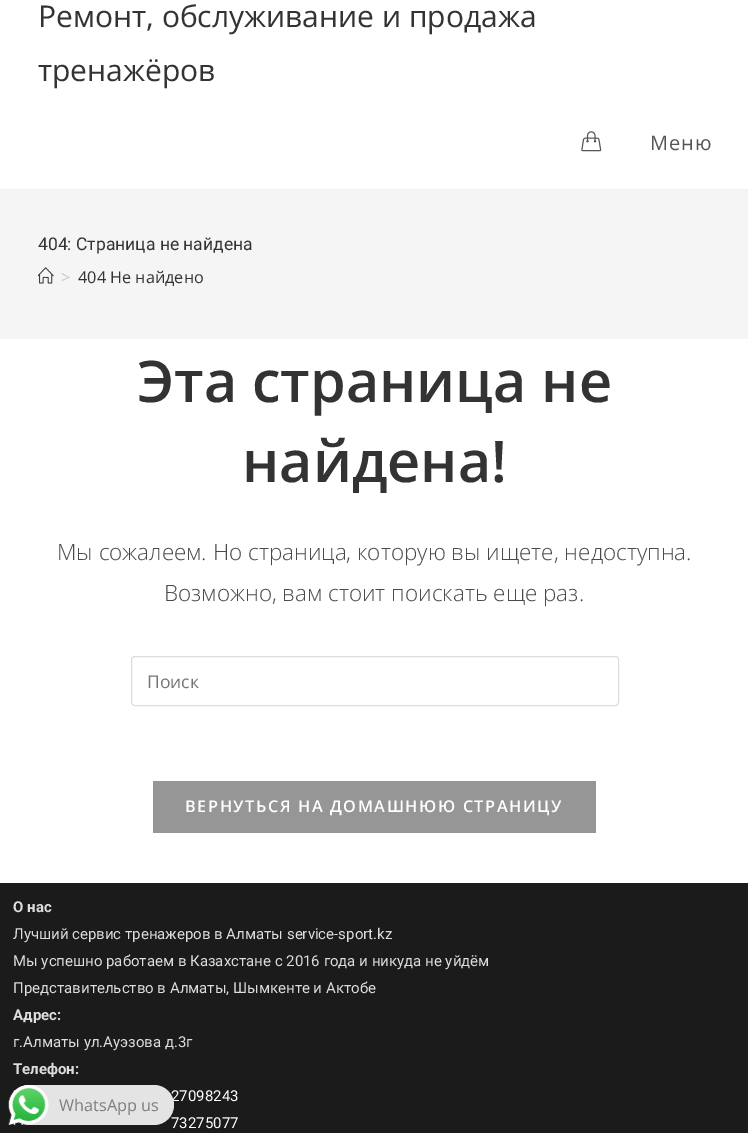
%!PS
<< /PageSize [748 1133] >> setpagedevice
/rgb { 3 { 255 div 3 1 roll } repeat setrgbcolor } def
/font { [ exch dup neg 0 0 3 -1 roll 0 0 ] selectfont } def
/text { moveto show } def
/roundrect { 5 dict begin { /r /h /w /y /x } { exch def } forall
  x r add y moveto x w add y 2 copy h add r arct x w add y h add x 1 index r arct
  x y h add x y r arct x y 2 copy exch w add exch r arct closepath end } def
/picture { 5 dict begin { /h /w /y /x /name } { exch def } forall
  gsave x y translate w h scale
  w h 8 [w 0 0 h 0 0] name (r) file false 3 colorimage grestore end } def
0 1133 translate 1 -1 scale
4 setmiterlimit
27 27 27 rgb
0 0 748 1133 rectfill
255 255 255 rgb
0 0 748 883 rectfill
241 241 241 rgb
0 189 748 1 rectfill
(img_01.rgb) 581 131 21 21 picture
245 245 245 rgb
0 190 748 149 rectfill
(img_02.rgb) 38 267 16 17 picture
221 221 221 rgb
131.5 656.5 487 49 3.5 roundrect stroke
150 150 150 rgb
153 781 443 52 rectfill
/OpenSans-Regular 30 font
51 51 51 rgb
(Ремонт, обслуживание и продажа) 38 27 text
(тренажёров) 38 81 text
/OpenSans-Regular 20 font
85 85 85 rgb
650 150 moveto 1 0 (Меню) ashow
/Roboto-Regular 17.5 font
51 51 51 rgb
(404: Страница не найдена) 38 250 text
/OpenSans-Regular 16.25 font
198 198 198 rgb
(>) 61 283 text
51 51 51 rgb
(404 Не найдено) 78 283 text
/OpenSans-SemiBold 57.5 font
(Эта страница не) 137 402 text
(найдена!) 242 482 text
/OpenSans-Light 22.5 font
74 74 74 rgb
(Мы сожалеем. Но страница, которую вы ищете, недоступна.) 57 560 text
(Возможно, вам стоит поискать еще раз.) 164 601 text
/OpenSans-Regular 17.5 font
117 117 117 rgb
(Поиск) 147 688 text
/OpenSans-SemiBold 16.25 font
255 255 255 rgb
185 812 moveto 1.6 0 (ВЕРНУТЬСЯ НА ДОМАШНЮЮ СТРАНИЦУ) ashow
/Roboto-Bold 15 font
221 221 221 rgb
(О нас) 13 912 text
/Roboto-Regular 15 font
(Лучший сервис тренажеров в Алматы service-sport.kz) 13 939 text
(Мы успешно работаем в Казахстане с 2016 года и никуда не уйдём) 13 966 text
(Представительство в Алматы, Шымкенте и Актобе) 13 993 text
/Roboto-Bold 15 font
(Адрес:) 13 1020 text
/Roboto-Regular 15 font
(г.Алматы ул.Ауэзова д.3г) 13 1047 text
/Roboto-Bold 15 font
(Телефон:) 13 1074 text
/Roboto-Regular 15 font
255 255 255 rgb
(27098243) 171 1101 text
(73275077) 171 1128 text
228 228 228 rgb
9 1085 165 40 20 roundrect fill
(img_03.rgb) 8 1085 41 40 picture
/OpenSans-Regular 16.25 font
127 125 125 rgb
(WhatsApp us) 59 1111 text
showpage
